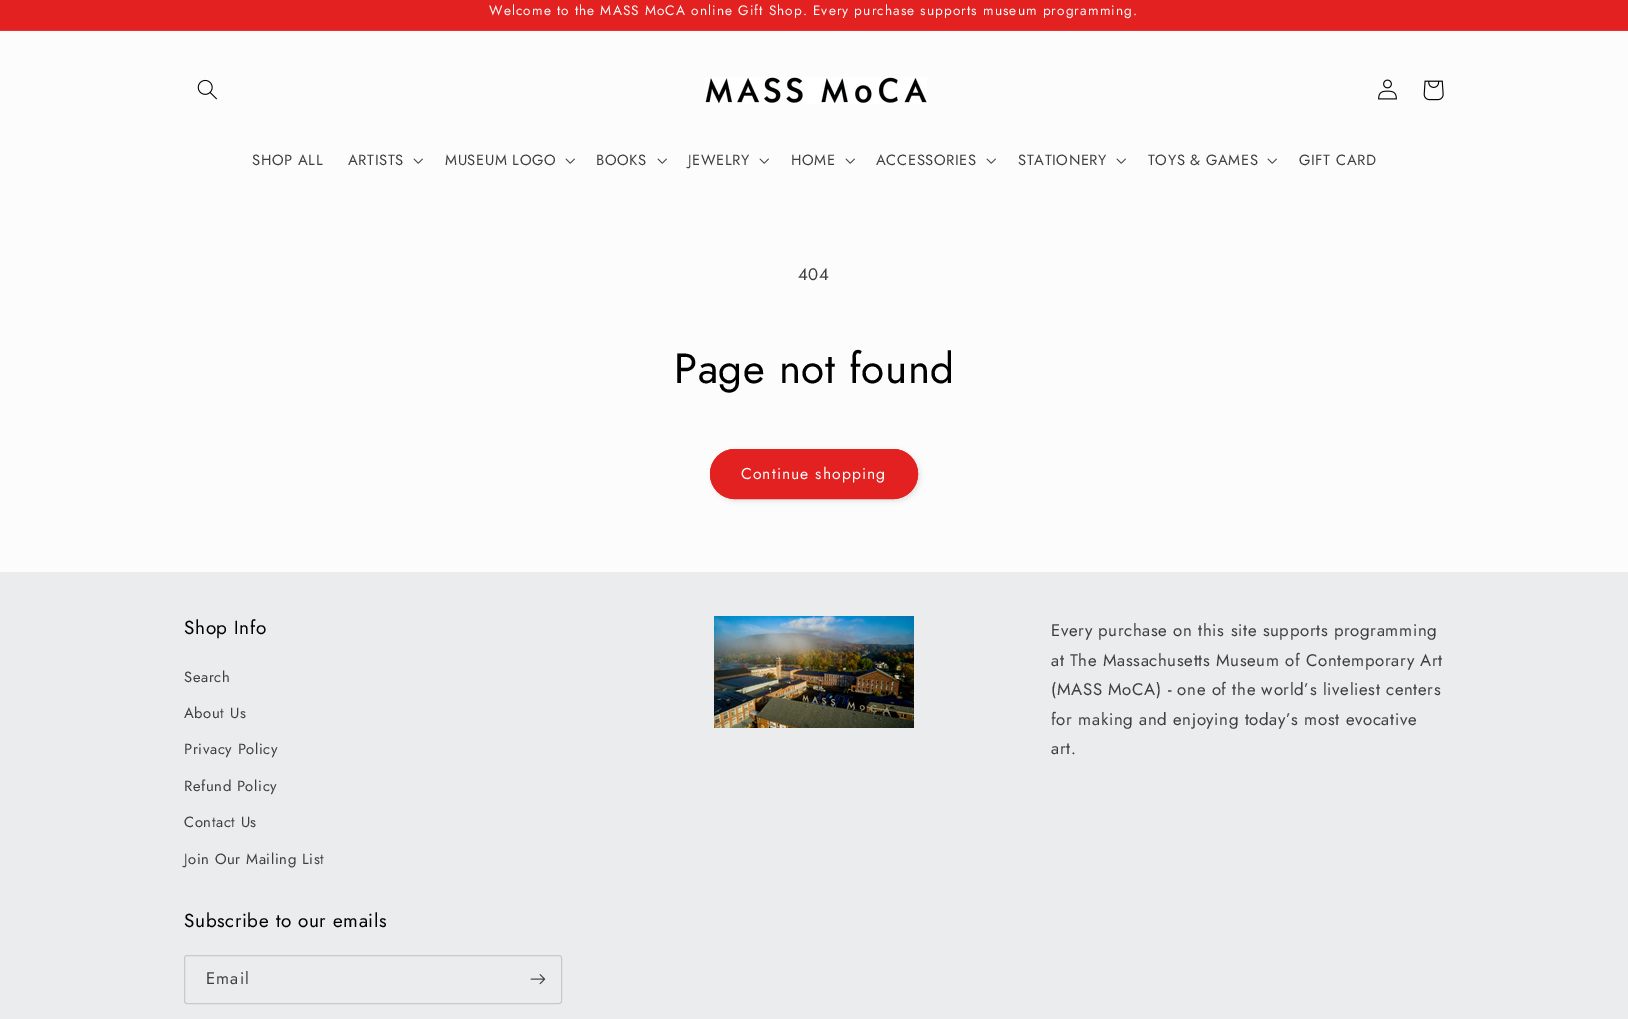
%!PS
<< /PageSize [1628 1019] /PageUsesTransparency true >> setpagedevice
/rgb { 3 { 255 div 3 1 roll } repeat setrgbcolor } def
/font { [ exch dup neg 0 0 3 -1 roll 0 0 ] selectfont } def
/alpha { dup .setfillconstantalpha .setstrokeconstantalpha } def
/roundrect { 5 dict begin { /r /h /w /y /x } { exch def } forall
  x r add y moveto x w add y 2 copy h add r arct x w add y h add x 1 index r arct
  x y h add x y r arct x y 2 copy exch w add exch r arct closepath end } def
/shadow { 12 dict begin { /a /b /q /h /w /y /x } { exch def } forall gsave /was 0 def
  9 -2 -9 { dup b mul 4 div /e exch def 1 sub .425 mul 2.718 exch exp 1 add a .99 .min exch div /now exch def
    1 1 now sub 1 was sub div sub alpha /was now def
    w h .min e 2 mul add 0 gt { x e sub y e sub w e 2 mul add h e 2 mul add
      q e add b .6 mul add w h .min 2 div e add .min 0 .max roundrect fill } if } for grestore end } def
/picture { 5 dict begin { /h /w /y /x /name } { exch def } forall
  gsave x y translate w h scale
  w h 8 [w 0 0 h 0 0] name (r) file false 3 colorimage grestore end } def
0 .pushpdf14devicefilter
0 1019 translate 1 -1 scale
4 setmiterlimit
252 252 252 rgb
0 0 1628 1019 rectfill
226 33 32 rgb
0 0 1628 30 rectfill
228 51 50 rgb
0 30 1628 1 rectfill
(img_01.rgb) 197 79 20 21 picture
(img_02.rgb) 705 77 222 27 picture
(img_03.rgb) 1378 79 19 21 picture
(img_04.rgb) 1423 80 21 21 picture
(img_05.rgb) 413 158 10 6 picture
(img_05.rgb) 565 158 10 6 picture
(img_05.rgb) 657 158 10 6 picture
(img_05.rgb) 759 158 10 6 picture
(img_05.rgb) 845 158 10 6 picture
(img_05.rgb) 986 158 10 6 picture
(img_05.rgb) 1116 158 10 6 picture
(img_05.rgb) 1267 158 10 6 picture
0 0 0 rgb
712 451 208 50 25 2.5 0.1 shadow
226 33 32 rgb
710 449 208 50 25 roundrect fill
710.5 449.5 207 49 24.5 roundrect stroke
235 236 237 rgb
0 572 1628 447 rectfill
(img_06.rgb) 714 616 200 112 picture
0.15 alpha
0 0 0 rgb
184.5 955.5 377 48 2.5 roundrect stroke
1 alpha
(img_07.rgb) 530 974 16 11 picture
/Jost-Regular 13.65 font
252 252 252 rgb
489 15 moveto 1.05 0 (Welcome to the MASS MoCA online Gift Shop. Every purchase supports museum programming.) ashow
/Jost-Regular 14.75 font
63 63 63 rgb
252 165 moveto 0.63 0 (SHOP ALL) ashow
348 165 moveto 0.63 0 (ARTISTS) ashow
445 165 moveto 0.63 0 (MUSEUM LOGO) ashow
596 165 moveto 0.63 0 (BOOKS) ashow
688 165 moveto 0.63 0 (JEWELRY) ashow
791 165 moveto 0.63 0 (HOME) ashow
876 165 moveto 0.63 0 (ACCESSORIES) ashow
1018 165 moveto 0.63 0 (STATIONERY) ashow
1148 165 moveto 0.63 0 (TOYS & GAMES) ashow
1299 165 moveto 0.63 0 (GIFT CARD) ashow
/Jost-Regular 16.8 font
798 280 moveto 0.63 0 (404) ashow
/Jost-Regular 42 font
0 0 0 rgb
674 383 moveto 0.63 0 (Page not found) ashow
/Jost-Regular 15.75 font
252 252 252 rgb
741 479 moveto 1.05 0 (Continue shopping) ashow
/Jost-Regular 18.9 font
0 0 0 rgb
184 634 moveto 0.63 0 (Shop Info) ashow
/Jost-Regular 14.75 font
63 63 63 rgb
184 682 moveto 0.63 0 (Search) ashow
184 718 moveto 0.63 0 (About Us) ashow
184 754 moveto 0.63 0 (Privacy Policy) ashow
184 791 moveto 0.63 0 (Refund Policy) ashow
184 827 moveto 0.63 0 (Contact Us) ashow
184 864 moveto 0.63 0 (Join Our Mailing List) ashow
/Jost-Regular 16.8 font
1051 636 moveto 0.63 0 (Every purchase on this site supports programming) ashow
1051 666 moveto 0.63 0 (at The Massachusetts Museum of Contemporary Art) ashow
1051 695 moveto 0.63 0 (\(MASS MoCA\) - one of the world’s liveliest centers) ashow
1051 725 moveto 0.63 0 (for making and enjoying today’s most evocative) ashow
1051 754 moveto 0.63 0 (art.) ashow
/Jost-Regular 18.9 font
0 0 0 rgb
184 927 moveto 0.63 0 (Subscribe to our emails) ashow
/Jost-Regular 16.8 font
63 63 63 rgb
206 984 moveto 1.05 0 (Email) ashow
.poppdf14devicefilter showpage
